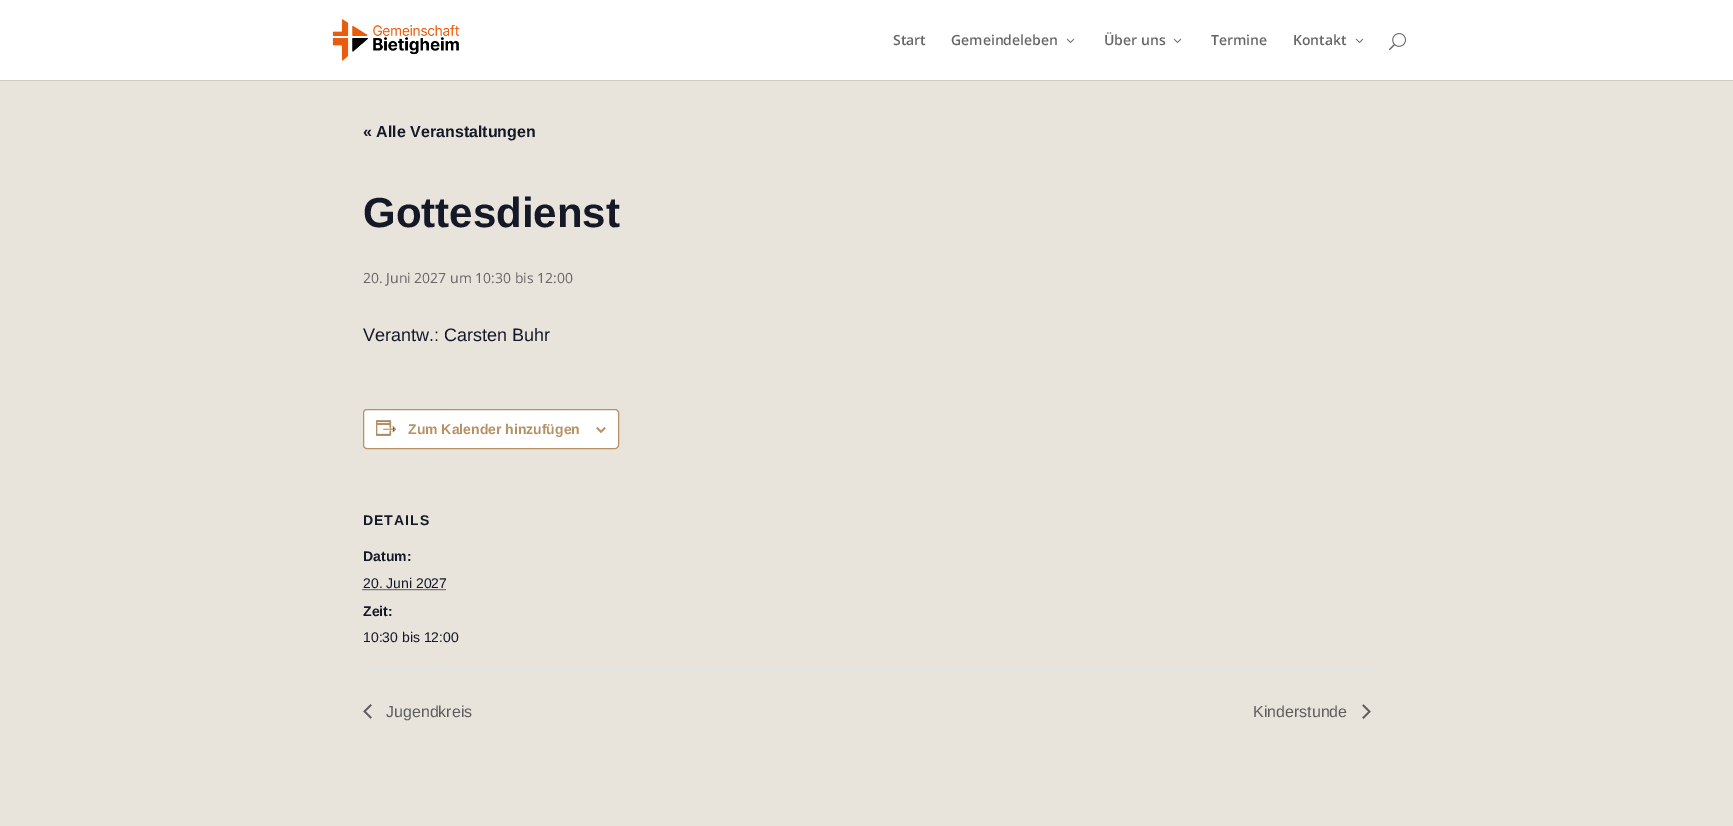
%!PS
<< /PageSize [1733 826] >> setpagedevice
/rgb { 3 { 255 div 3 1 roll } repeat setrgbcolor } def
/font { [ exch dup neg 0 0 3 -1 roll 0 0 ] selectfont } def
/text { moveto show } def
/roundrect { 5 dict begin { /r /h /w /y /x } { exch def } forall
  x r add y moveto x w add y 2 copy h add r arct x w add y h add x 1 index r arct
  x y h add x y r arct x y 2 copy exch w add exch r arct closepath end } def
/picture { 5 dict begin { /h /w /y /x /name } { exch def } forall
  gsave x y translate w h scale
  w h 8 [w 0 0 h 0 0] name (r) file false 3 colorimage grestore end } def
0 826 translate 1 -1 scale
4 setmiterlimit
232 228 220 rgb
0 0 1733 826 rectfill
209 205 198 rgb
0 80 1733 1 rectfill
255 255 255 rgb
0 0 1733 80 rectfill
(img_01.rgb) 332 19 128 42 picture
(img_02.rgb) 1066 38 9 5 picture
(img_02.rgb) 1173 38 9 5 picture
(img_02.rgb) 1355 38 9 5 picture
(img_03.rgb) 1389 33 17 18 picture
363.5 409.5 255 39 3.5 roundrect gsave fill grestore
183 145 98 rgb
stroke
(img_04.rgb) 376 420 20 16 picture
(img_05.rgb) 596 427 10 6 picture
228 228 228 rgb
363 481 1008 1 rectfill
20 24 39 rgb
[1 1] 0 setdash
362.5 589.5 moveto 84 0 rlineto stroke
228 228 228 rgb
363 670 1008 1 rectfill
(img_06.rgb) 363 704 9 15 picture
(img_07.rgb) 1362 704 9 15 picture
/OpenSans-SemiBold 14 font
102 102 102 rgb
(Start) 893 45 text
(Gemeindeleben) 951 45 text
(Über uns) 1104 45 text
(Termine) 1211 45 text
(Kontakt) 1293 45 text
/LiberationSans-Bold 16 font
20 24 39 rgb
(« Alle Veranstaltungen) 363 137 text
/LiberationSans-Bold 42 font
(Gottesdienst) 363 227 text
/OpenSans-Regular 14 font
102 102 102 rgb
(20. Juni 2027 um 10:30 bis 12:00) 363 283 text
/LiberationSans-Regular 18 font
20 24 39 rgb
(Verantw.: Carsten Buhr) 363 341 text
/LiberationSans-Bold 14 font
183 145 98 rgb
(Zum Kalender hinzufügen) 408 434 text
20 24 39 rgb
363 525 moveto 1 0 (DETAILS) ashow
(Datum:) 363 561 text
/LiberationSans-Regular 14 font
(20. Juni 2027) 363 588 text
/LiberationSans-Bold 14 font
(Zeit:) 363 616 text
/LiberationSans-Regular 14 font
(10:30 bis 12:00) 363 642 text
/LiberationSans-Regular 16 font
93 93 93 rgb
(Jugendkreis) 386 717 text
(Kinderstunde) 1253 717 text
showpage
